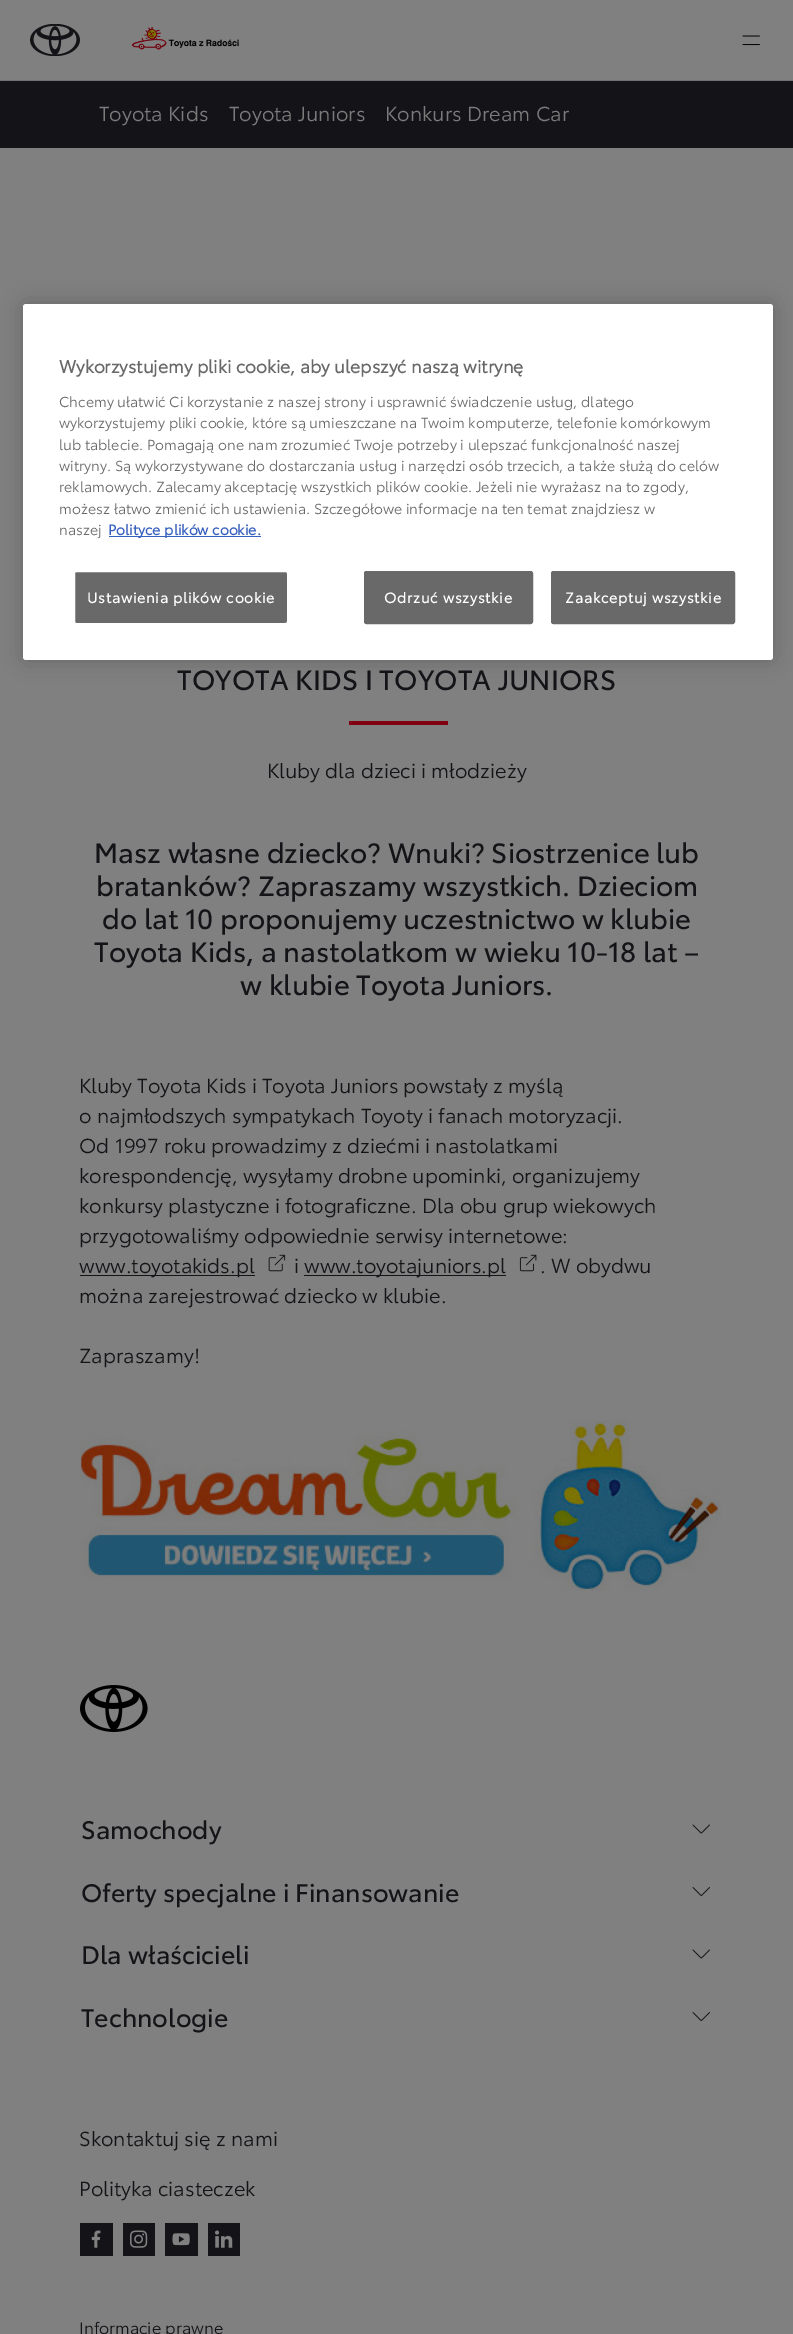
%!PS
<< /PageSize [793 2334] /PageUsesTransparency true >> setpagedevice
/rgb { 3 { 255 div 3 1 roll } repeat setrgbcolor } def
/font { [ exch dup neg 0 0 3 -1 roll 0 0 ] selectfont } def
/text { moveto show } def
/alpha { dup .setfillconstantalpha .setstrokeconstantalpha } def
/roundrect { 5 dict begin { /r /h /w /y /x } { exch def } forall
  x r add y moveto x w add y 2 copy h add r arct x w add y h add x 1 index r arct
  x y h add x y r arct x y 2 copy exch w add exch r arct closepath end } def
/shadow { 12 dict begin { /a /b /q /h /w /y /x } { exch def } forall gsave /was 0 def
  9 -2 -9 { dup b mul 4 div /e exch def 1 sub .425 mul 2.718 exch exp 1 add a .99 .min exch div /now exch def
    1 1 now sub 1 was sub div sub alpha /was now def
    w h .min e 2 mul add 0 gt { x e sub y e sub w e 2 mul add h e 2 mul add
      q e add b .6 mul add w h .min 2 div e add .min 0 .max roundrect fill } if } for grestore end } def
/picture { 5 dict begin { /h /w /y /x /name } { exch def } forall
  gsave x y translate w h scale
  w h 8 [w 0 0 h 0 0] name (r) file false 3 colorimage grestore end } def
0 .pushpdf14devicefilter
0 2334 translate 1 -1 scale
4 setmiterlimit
128 128 128 rgb
0 0 793 2334 rectfill
(img_01.rgb) 30 24 50 32 picture
(img_02.rgb) 132 27 107 23 picture
(img_03.rgb) 742 35 18 11 picture
114 114 114 rgb
0 80 793 1 rectfill
20 20 24 rgb
0 81 793 67 rectfill
128 0 17 rgb
349 721 99 4 rectfill
20 20 24 rgb
80 1275 175 1 rectfill
(img_04.rgb) 268 1254 18 18 picture
304 1275 202 1 rectfill
(img_05.rgb) 519 1254 18 18 picture
(img_06.rgb) 80 1420 641 172 picture
0 0 0 rgb
23 304 750 356 3 11 0.2 shadow
255 255 255 rgb
23 304 750 356 3 roundrect fill
56 96 190 rgb
109 536 152 1 rectfill
105 105 105 rgb
74.5 571.5 213 52 2 roundrect gsave fill grestore
255 255 255 rgb
stroke
105 105 105 rgb
364.5 571.5 168 52 2 roundrect gsave fill grestore
stroke
551.5 571.5 183 52 2 roundrect gsave fill grestore
stroke
(img_07.rgb) 80 1685 68 47 picture
(img_08.rgb) 692 1824 18 10 picture
(img_09.rgb) 692 1887 18 9 picture
(img_08.rgb) 692 1949 18 10 picture
(img_09.rgb) 692 2012 18 9 picture
20 20 24 rgb
80 2223 33 33 rectfill
(img_10.rgb) 91 2230 10 18 picture
123 2223 32 33 rectfill
(img_11.rgb) 129 2230 19 18 picture
165 2223 33 33 rectfill
(img_12.rgb) 172 2233 18 13 picture
208 2223 32 33 rectfill
(img_13.rgb) 215 2230 18 18 picture
/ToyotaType-Regular 20 font
123 123 123 rgb
(Toyota Kids) 99 121 text
(Toyota Juniors) 229 121 text
(Konkurs Dream Car) 385 121 text
/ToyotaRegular-Regular 27.5 font
20 20 24 rgb
(TOYOTA KIDS I TOYOTA JUNIORS) 177 690 text
/ToyotaType-Regular 20 font
(Kluby dla dzieci i młodzieży) 267 778 text
/ToyotaRegular-Regular 27.5 font
(Masz własne dziecko? Wnuki? Siostrzenice lub) 94 863 text
(bratanków? Zapraszamy wszystkich. Dzieciom) 96 896 text
(do lat 10 proponujemy uczestnictwo w klubie) 102 929 text
(Toyota Kids, a nastolatkom w wieku 10-18 lat –) 94 962 text
(w klubie Toyota Juniors.) 240 995 text
/ToyotaType-Regular 20 font
(Kluby Toyota Kids i Toyota Juniors powstały z myślą) 79 1093 text
(o najmłodszych sympatykach Toyoty i fanach motoryzacji.) 79 1123 text
(Od 1997 roku prowadzimy z dziećmi i nastolatkami) 79 1153 text
(korespondencję, wysyłamy drobne upominki, organizujemy) 79 1183 text
(konkursy plastyczne i fotograficzne. Dla obu grup wiekowych) 79 1213 text
(przygotowaliśmy odpowiednie serwisy internetowe:) 79 1243 text
(www.toyotakids.pl) 79 1273 text
(i) 294 1273 text
(www.toyotajuniors.pl) 304 1273 text
(. W obydwu) 540 1273 text
(można zarejestrować dziecko w klubie.) 79 1303 text
(Zapraszamy!) 79 1363 text
/ToyotaType-Bold 17.5 font
105 105 105 rgb
(Wykorzystujemy pliki cookie, aby ulepszyć naszą witrynę) 59 373 text
/ToyotaType-Regular 14.25 font
(Chcemy ułatwić Ci korzystanie z naszej strony i usprawnić świadczenie usług, dlatego) 59 407 text
(wykorzystujemy pliki cookie, które są umieszczane na Twoim komputerze, telefonie komórkowym) 59 428 text
(lub tablecie. Pomagają one nam zrozumieć Twoje potrzeby i ulepszać funkcjonalność naszej) 59 450 text
(witryny. Są wykorzystywane do dostarczania usług i narzędzi osób trzecich, a także służą do celów) 59 471 text
(reklamowych. Zalecamy akceptację wszystkich plików cookie. Jeżeli nie wyrażasz na to zgody,) 59 492 text
(możesz łatwo zmienić ich ustawienia. Szczegółowe informacje na ten temat znajdziesz w) 59 514 text
(naszej) 59 535 text
/ToyotaType-Bold 14.25 font
56 96 190 rgb
(Polityce plików cookie.) 108 535 text
255 255 255 rgb
87 603 moveto 0.75 0 (Ustawienia plików cookie) ashow
384 603 moveto 0.75 0 (Odrzuć wszystkie) ashow
565 603 moveto 0.75 0 (Zaakceptuj wszystkie) ashow
/ToyotaRegular-Regular 25 font
20 20 24 rgb
(Samochody) 81 1839 text
(Oferty specjalne i Finansowanie) 81 1902 text
(Dla właścicieli) 81 1964 text
(Technologie) 81 2027 text
/ToyotaType-Regular 20 font
(Skontaktuj się z nami) 79 2146 text
(Polityka ciasteczek) 79 2196 text
/ToyotaType-Regular 16.25 font
(Informacje prawne) 79 2334 text
.poppdf14devicefilter showpage
